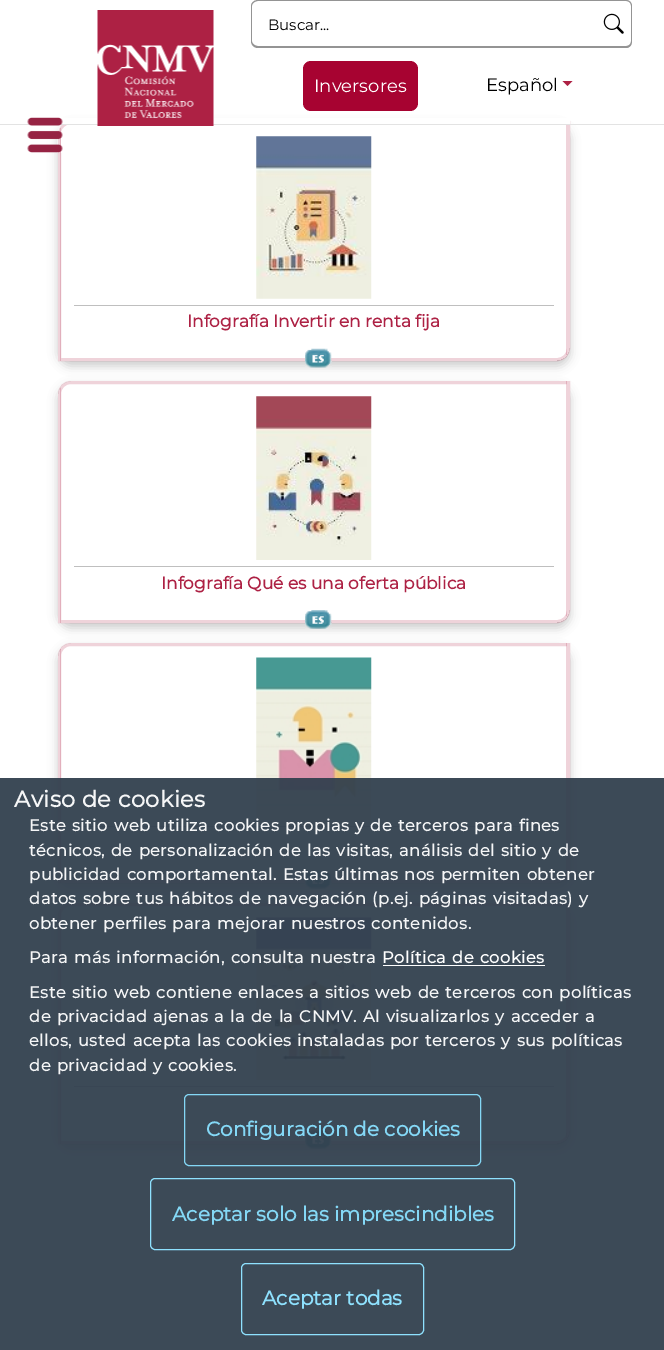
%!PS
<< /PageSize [664 1350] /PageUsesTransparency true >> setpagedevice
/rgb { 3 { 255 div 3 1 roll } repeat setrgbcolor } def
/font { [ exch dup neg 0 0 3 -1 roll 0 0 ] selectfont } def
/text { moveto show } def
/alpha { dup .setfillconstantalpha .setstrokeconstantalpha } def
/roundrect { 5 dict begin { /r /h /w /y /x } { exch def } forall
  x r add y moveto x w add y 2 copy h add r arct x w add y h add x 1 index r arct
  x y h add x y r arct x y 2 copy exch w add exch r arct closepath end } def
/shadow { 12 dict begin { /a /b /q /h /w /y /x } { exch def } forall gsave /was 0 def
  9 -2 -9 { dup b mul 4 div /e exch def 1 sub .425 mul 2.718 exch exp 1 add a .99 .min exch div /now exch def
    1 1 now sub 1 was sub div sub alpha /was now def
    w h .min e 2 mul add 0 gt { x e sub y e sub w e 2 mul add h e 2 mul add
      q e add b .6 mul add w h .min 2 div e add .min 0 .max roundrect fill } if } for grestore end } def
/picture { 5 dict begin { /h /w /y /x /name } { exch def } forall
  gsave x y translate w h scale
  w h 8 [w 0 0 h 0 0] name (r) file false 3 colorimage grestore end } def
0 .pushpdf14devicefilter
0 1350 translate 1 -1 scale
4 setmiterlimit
255 255 255 rgb
0 0 664 1350 rectfill
gsave
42 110 moveto 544 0 rlineto 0 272 rlineto -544 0 rlineto closepath 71 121 moveto 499 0 rlineto 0 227 rlineto 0 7 -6 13 -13 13 rcurveto -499 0 rlineto 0 -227 rlineto 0 -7 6 -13 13 -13 rcurveto closepath eoclip newpath
0 0 0 rgb
58 126 512 240 13 5 0.2 shadow
grestore
0.2 alpha
173 33 68 rgb
3 setlinewidth
71 122.5 moveto 497.5 0 rlineto 0 225.5 rlineto 0 6.5 -5 11.5 -11.5 11.5 rcurveto -497.5 0 rlineto 0 -225.5 rlineto 0 -6.5 5 -11.5 11.5 -11.5 rcurveto closepath stroke
566 121 1 234 rectfill
1 alpha
255 255 255 rgb
58 118 512 6 rectfill
227 227 227 rgb
0 124 664 1 rectfill
(img_01.rgb) 97 10 117 116 picture
225 175 188 rgb
60 128 1 233 rectfill
(img_02.rgb) 27 117 36 36 picture
148 148 148 rgb
596 0 moveto 30 0 rlineto 4 0 6 3 6 6 rcurveto 0 35 rlineto 0 4 -2 7 -6 7 rcurveto -30 0 rlineto closepath 596 1 moveto 30 0 rlineto 3 0 5 2 5 5 rcurveto 0 35 rlineto 0 3 -2 5 -5 5 rcurveto -30 0 rlineto closepath eofill
258 0 moveto 340 0 rlineto 0 48 rlineto -340 0 rlineto -4 0 -7 -3 -7 -7 rcurveto 0 -35 rlineto 0 -3 3 -6 7 -6 rcurveto closepath 258 1 moveto 340 0 rlineto 0 45 rlineto -340 0 rlineto -3 0 -6 -2 -6 -5 rcurveto 0 -35 rlineto 0 -3 3 -5 6 -5 rcurveto closepath eofill
(img_03.rgb) 603 13 21 21 picture
167 3 49 rgb
303 61 115 50 8 roundrect fill
173 33 68 rgb
562.5 81 moveto 10 0 rlineto -5 5 rlineto closepath fill
(img_04.rgb) 256 136 116 163 picture
191 191 191 rgb
74 305 480 1 rectfill
(img_05.rgb) 305 348 27 20 picture
gsave
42 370 moveto 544 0 rlineto 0 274 rlineto -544 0 rlineto closepath 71 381 moveto 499 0 rlineto 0 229 rlineto 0 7 -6 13 -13 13 rcurveto -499 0 rlineto 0 -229 rlineto 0 -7 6 -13 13 -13 rcurveto closepath eoclip newpath
0 0 0 rgb
58 386 512 242 13 5 0.2 shadow
grestore
0.2 alpha
173 33 68 rgb
71 382.5 moveto 497.5 0 rlineto 0 227.5 rlineto 0 6.5 -5 11.5 -11.5 11.5 rcurveto -497.5 0 rlineto 0 -227.5 rlineto 0 -6.5 5 -11.5 11.5 -11.5 rcurveto closepath stroke
566 381 1 235 rectfill
60 388 1 235 rectfill
1 alpha
(img_06.rgb) 256 396 116 164 picture
191 191 191 rgb
74 566 480 1 rectfill
(img_07.rgb) 305 610 27 19 picture
gsave
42 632 moveto 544 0 rlineto 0 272 rlineto -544 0 rlineto closepath 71 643 moveto 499 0 rlineto 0 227 rlineto 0 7 -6 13 -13 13 rcurveto -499 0 rlineto 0 -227 rlineto 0 -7 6 -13 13 -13 rcurveto closepath eoclip newpath
0 0 0 rgb
58 648 512 240 13 5 0.2 shadow
grestore
0.2 alpha
173 33 68 rgb
71 644.5 moveto 497.5 0 rlineto 0 225.5 rlineto 0 6.5 -5 11.5 -11.5 11.5 rcurveto -497.5 0 rlineto 0 -225.5 rlineto 0 -6.5 5 -11.5 11.5 -11.5 rcurveto closepath stroke
566 643 1 233 rectfill
60 649 1 234 rectfill
1 alpha
(img_08.rgb) 256 657 116 163 picture
191 191 191 rgb
74 826 480 1 rectfill
(img_07.rgb) 305 870 27 19 picture
gsave
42 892 moveto 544 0 rlineto 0 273 rlineto -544 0 rlineto closepath 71 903 moveto 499 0 rlineto 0 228 rlineto 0 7 -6 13 -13 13 rcurveto -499 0 rlineto 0 -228 rlineto 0 -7 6 -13 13 -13 rcurveto closepath eoclip newpath
0 0 0 rgb
58 908 512 241 13 5 0.2 shadow
grestore
0.2 alpha
173 33 68 rgb
71 904.5 moveto 497.5 0 rlineto 0 226.5 rlineto 0 6.5 -5 11.5 -11.5 11.5 rcurveto -497.5 0 rlineto 0 -226.5 rlineto 0 -6.5 5 -11.5 11.5 -11.5 rcurveto closepath stroke
566 903 1 235 rectfill
60 909 1 235 rectfill
1 alpha
(img_09.rgb) 256 917 116 163 picture
191 191 191 rgb
74 1086 480 1 rectfill
(img_10.rgb) 305 1130 27 19 picture
0.95 alpha
50 64 78 rgb
0 778 664 572 rectfill
1 alpha
255 255 255 rgb
383 965 162 1 rectfill
0.95 alpha
136 223 254 rgb
1 setlinewidth
184.5 1094.5 296 71 4.5 roundrect stroke
1 alpha
142 225 254 rgb
150.5 1178.5 364 71 4.5 roundrect stroke
241.5 1263.5 182 71 4.5 roundrect stroke
/Montserrat-Regular 15 font
0 0 0 rgb
(Buscar...) 268 30 text
/Montserrat-Regular 18 font
255 255 255 rgb
(Inversores) 314 92 text
0 0 0 rgb
(Español) 486 91 text
/Montserrat-Bold 17 font
173 33 68 rgb
(Infografía Invertir en renta fija) 187 327 text
(Infografía Qué es una oferta pública) 161 589 text
/Montserrat-Bold 22.5 font
245 246 247 rgb
14 807 moveto 0.4 0 (Aviso de cookies) ashow
/Montserrat-Bold 16.25 font
29 831 moveto 1.1 0 32 0.5 0 (Este sitio web utiliza cookies propias y de terceros para fines) awidthshow
29 856 moveto 1.1 0 32 0.5 0 (técnicos, de personalización de las visitas, análisis del sitio y de) awidthshow
29 880 moveto 1.1 0 32 0.5 0 (publicidad comportamental. Estas últimas nos permiten obtener) awidthshow
29 904 moveto 1.1 0 32 0.5 0 (datos sobre tus hábitos de navegación \(p.ej. páginas visitadas\) y) awidthshow
29 929 moveto 1.1 0 32 0.5 0 (obtener perfiles para mejorar nuestros contenidos.) awidthshow
29 963 moveto 1.1 0 32 0.5 0 (Para más información, consulta nuestra) awidthshow
255 255 255 rgb
382 963 moveto 1.1 0 32 0.5 0 (Política de cookies) awidthshow
245 246 247 rgb
29 998 moveto 1.1 0 32 0.5 0 (Este sitio web contiene enlaces a sitios web de terceros con políticas) awidthshow
29 1022 moveto 1.1 0 32 0.5 0 (de privacidad ajenas a la de la CNMV. Al visualizarlos y acceder a) awidthshow
29 1046 moveto 1.1 0 32 0.5 0 (ellos, usted acepta las cookies instaladas por terceros y sus políticas) awidthshow
29 1071 moveto 1.1 0 32 0.5 0 (de privacidad y cookies.) awidthshow
/Montserrat-Bold 20 font
132 216 246 rgb
(Configuración de cookies) 206 1136 text
(Aceptar solo las imprescindibles) 172 1221 text
142 225 254 rgb
(Aceptar todas) 262 1305 text
.poppdf14devicefilter showpage
